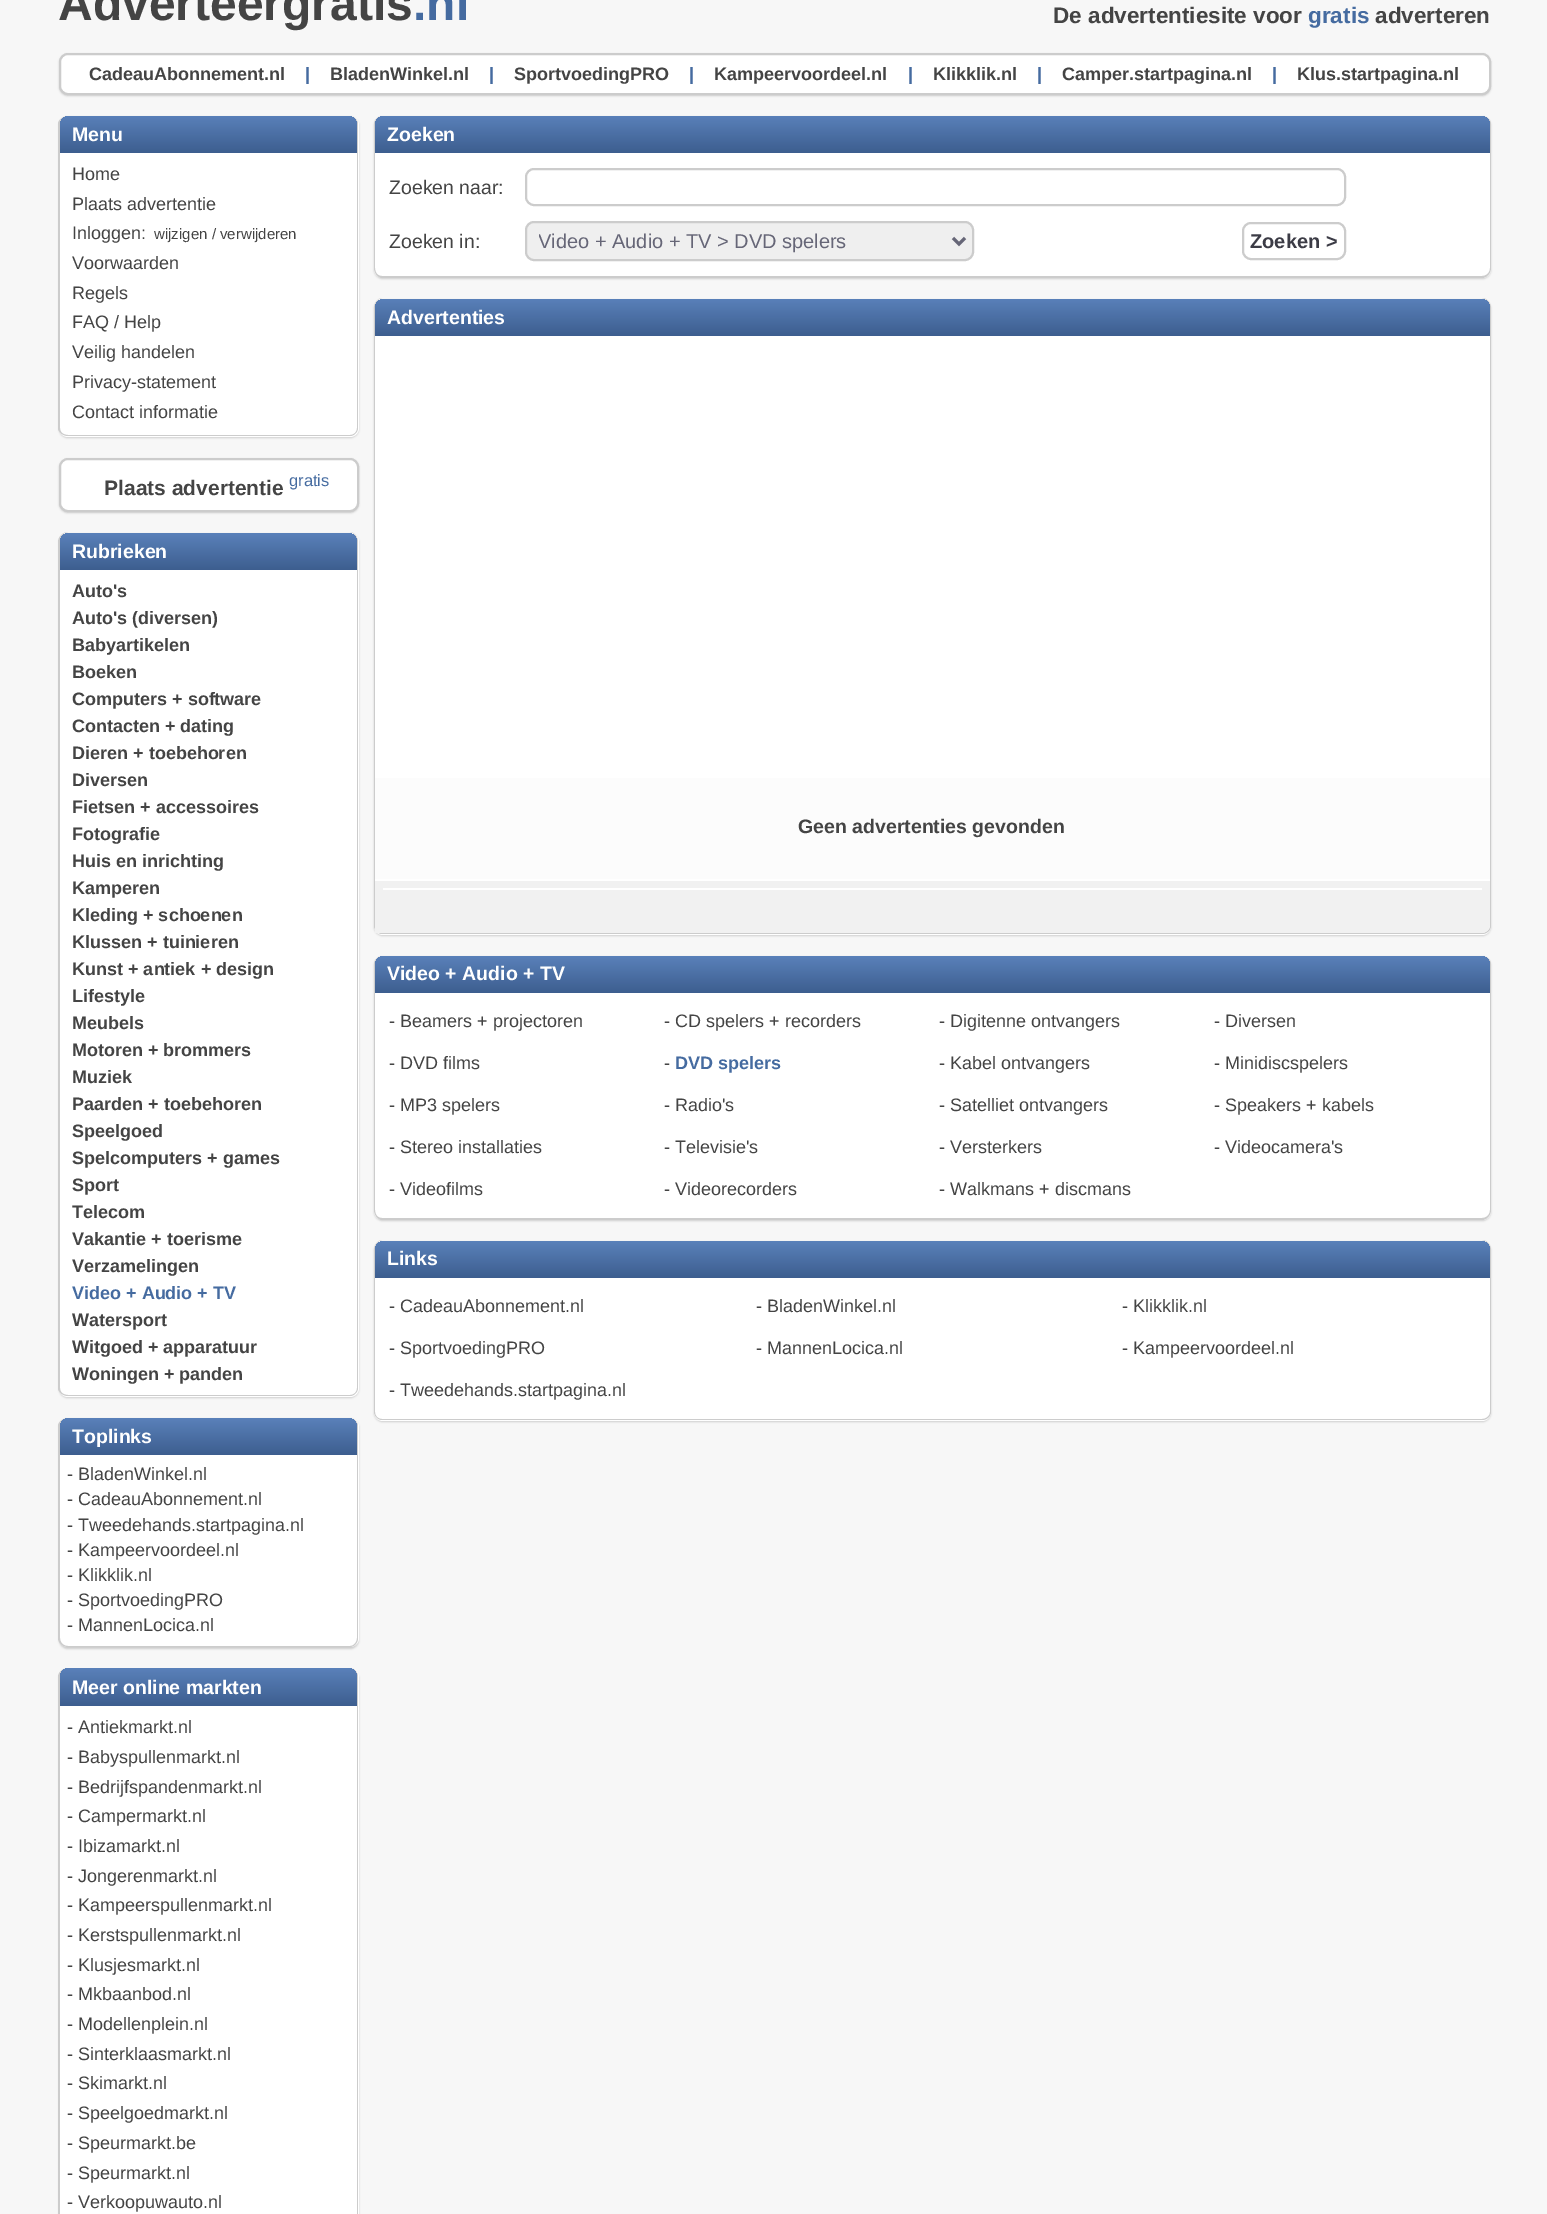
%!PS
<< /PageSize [1547 2214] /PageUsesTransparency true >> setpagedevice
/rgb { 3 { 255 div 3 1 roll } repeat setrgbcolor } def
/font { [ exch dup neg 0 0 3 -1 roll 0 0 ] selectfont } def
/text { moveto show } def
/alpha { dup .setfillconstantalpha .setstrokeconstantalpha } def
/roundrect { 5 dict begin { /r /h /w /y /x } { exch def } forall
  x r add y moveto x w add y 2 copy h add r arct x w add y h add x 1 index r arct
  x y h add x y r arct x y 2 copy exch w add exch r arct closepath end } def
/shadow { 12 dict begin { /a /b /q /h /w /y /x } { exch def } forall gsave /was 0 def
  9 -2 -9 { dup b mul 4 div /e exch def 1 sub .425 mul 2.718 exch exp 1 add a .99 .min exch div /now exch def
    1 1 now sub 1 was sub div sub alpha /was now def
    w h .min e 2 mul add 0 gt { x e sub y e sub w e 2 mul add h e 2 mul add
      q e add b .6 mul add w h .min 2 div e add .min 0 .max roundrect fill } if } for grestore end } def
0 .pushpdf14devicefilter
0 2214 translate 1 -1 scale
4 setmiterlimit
247 247 247 rgb
0 0 1547 2214 rectfill
204 204 204 rgb
59 54 1432 42 9 1 1 shadow
255 255 255 rgb
60 54 1430 40 8 roundrect gsave fill grestore
204 204 204 rgb
2 setlinewidth
stroke
59 117 300 321 9 1 1 shadow
255 255 255 rgb
59 116 300 321 9 roundrect fill
204 204 204 rgb
68 116 moveto 282 0 rlineto 4 0 8 4 8 8 rcurveto 0 304 rlineto 0 4 -4 8 -8 8 rcurveto -282 0 rlineto -5 0 -10 -4 -10 -8 rcurveto 0 -304 rlineto 0 -4 5 -8 10 -8 rcurveto closepath 68 116 moveto 282 0 rlineto 4 0 7 4 7 8 rcurveto 0 304 rlineto 0 4 -3 7 -7 7 rcurveto -282 0 rlineto -5 0 -8 -3 -8 -7 rcurveto 0 -304 rlineto 0 -4 3 -8 8 -8 rcurveto closepath eofill
gsave 69 116 moveto 279 0 rlineto 5 0 9 4 9 9 rcurveto 0 28 rlineto -297 0 rlineto 0 -28 rlineto 0 -5 4 -9 9 -9 rcurveto closepath clip newpath
<< /ShadingType 2 /ColorSpace /DeviceRGB /Coords [209 115 209 153] /Extend [true true] /Function << /FunctionType 2 /Domain [0 1] /C0 [0.353 0.506 0.729] /C1 [0.239 0.369 0.561] /N 1 >> >> shfill grestore
59 459 300 54 9 1 1 shadow
255 255 255 rgb
60 459 298 52 8 roundrect gsave fill grestore
204 204 204 rgb
stroke
59 534 300 864 9 1 1 shadow
255 255 255 rgb
59 533 300 864 9 roundrect fill
204 204 204 rgb
68 532 moveto 282 0 rlineto 4 0 8 5 8 10 rcurveto 0 846 rlineto 0 4 -4 8 -8 8 rcurveto -282 0 rlineto -5 0 -10 -4 -10 -8 rcurveto 0 -846 rlineto 0 -5 5 -10 10 -10 rcurveto closepath 68 532 moveto 282 0 rlineto 4 0 7 5 7 10 rcurveto 0 846 rlineto 0 4 -3 7 -7 7 rcurveto -282 0 rlineto -5 0 -8 -3 -8 -7 rcurveto 0 -846 rlineto 0 -5 3 -10 8 -10 rcurveto closepath eofill
gsave 69 533 moveto 279 0 rlineto 5 0 9 4 9 9 rcurveto 0 28 rlineto -297 0 rlineto 0 -28 rlineto 0 -5 4 -9 9 -9 rcurveto closepath clip newpath
<< /ShadingType 2 /ColorSpace /DeviceRGB /Coords [209 533 209 570] /Extend [true true] /Function << /FunctionType 2 /Domain [0 1] /C0 [0.353 0.506 0.729] /C1 [0.239 0.369 0.561] /N 1 >> >> shfill grestore
59 1419 300 230 9 1 1 shadow
255 255 255 rgb
59 1418 300 229 9 roundrect fill
204 204 204 rgb
68 1418 moveto 282 0 rlineto 4 0 8 4 8 8 rcurveto 0 212 rlineto 0 5 -4 9 -8 9 rcurveto -282 0 rlineto -5 0 -10 -4 -10 -9 rcurveto 0 -212 rlineto 0 -4 5 -8 10 -8 rcurveto closepath 68 1418 moveto 282 0 rlineto 4 0 7 4 7 8 rcurveto 0 212 rlineto 0 4 -3 8 -7 8 rcurveto -282 0 rlineto -5 0 -8 -4 -8 -8 rcurveto 0 -212 rlineto 0 -4 3 -8 8 -8 rcurveto closepath eofill
gsave 69 1418 moveto 279 0 rlineto 5 0 9 4 9 9 rcurveto 0 28 rlineto -297 0 rlineto 0 -28 rlineto 0 -5 4 -9 9 -9 rcurveto closepath clip newpath
<< /ShadingType 2 /ColorSpace /DeviceRGB /Coords [209 1418 209 1455] /Extend [true true] /Function << /FunctionType 2 /Domain [0 1] /C0 [0.353 0.506 0.729] /C1 [0.239 0.369 0.561] /N 1 >> >> shfill grestore
59 1670 300 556 9 1 1 shadow
255 255 255 rgb
59 1668 300 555 9 roundrect fill
204 204 204 rgb
68 1668 moveto 282 0 rlineto 4 0 8 4 8 9 rcurveto 0 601 rlineto 0 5 -4 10 -8 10 rcurveto -282 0 rlineto -5 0 -10 -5 -10 -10 rcurveto 0 -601 rlineto 0 -5 5 -9 10 -9 rcurveto closepath 68 1668 moveto 282 0 rlineto 4 0 7 4 7 9 rcurveto 0 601 rlineto 0 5 -3 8 -7 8 rcurveto -282 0 rlineto -5 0 -8 -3 -8 -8 rcurveto 0 -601 rlineto 0 -5 3 -9 8 -9 rcurveto closepath eofill
gsave 69 1668 moveto 279 0 rlineto 5 0 9 4 9 9 rcurveto 0 29 rlineto -297 0 rlineto 0 -29 rlineto 0 -5 4 -9 9 -9 rcurveto closepath clip newpath
<< /ShadingType 2 /ColorSpace /DeviceRGB /Coords [209 1668 209 1706] /Extend [true true] /Function << /FunctionType 2 /Domain [0 1] /C0 [0.353 0.506 0.729] /C1 [0.239 0.369 0.561] /N 1 >> >> shfill grestore
374 117 1117 162 9 1 1 shadow
255 255 255 rgb
374 116 1117 162 9 roundrect fill
204 204 204 rgb
382 116 moveto 1100 0 rlineto 5 0 9 4 9 8 rcurveto 0 144 rlineto 0 5 -4 10 -9 10 rcurveto -1100 0 rlineto -4 0 -8 -5 -8 -10 rcurveto 0 -144 rlineto 0 -4 4 -8 8 -8 rcurveto closepath 382 116 moveto 1100 0 rlineto 4 0 8 4 8 8 rcurveto 0 144 rlineto 0 5 -4 8 -8 8 rcurveto -1100 0 rlineto -4 0 -7 -3 -7 -8 rcurveto 0 -144 rlineto 0 -4 3 -8 7 -8 rcurveto closepath eofill
gsave 384 116 moveto 1097 0 rlineto 5 0 9 4 9 9 rcurveto 0 28 rlineto -1115 0 rlineto 0 -28 rlineto 0 -5 4 -9 9 -9 rcurveto closepath clip newpath
<< /ShadingType 2 /ColorSpace /DeviceRGB /Coords [932 115 932 153] /Extend [true true] /Function << /FunctionType 2 /Domain [0 1] /C0 [0.353 0.506 0.729] /C1 [0.239 0.369 0.561] /N 1 >> >> shfill grestore
526 169 819 36 8 roundrect stroke
239 239 239 rgb
526 222 447 38 8 roundrect gsave fill grestore
204 204 204 rgb
stroke
102 102 119 rgb
3 setlinewidth
953 238 moveto 6 6 rlineto 6 -6 rlineto stroke
204 204 204 rgb
2 setlinewidth
1243 223 102 36 8 roundrect stroke
374 300 1117 636 9 1 1 shadow
255 255 255 rgb
374 299 1117 636 9 roundrect fill
204 204 204 rgb
382 298 moveto 1100 0 rlineto 5 0 9 5 9 10 rcurveto 0 618 rlineto 0 4 -4 8 -9 8 rcurveto -1100 0 rlineto -4 0 -8 -4 -8 -8 rcurveto 0 -618 rlineto 0 -5 4 -10 8 -10 rcurveto closepath 382 298 moveto 1100 0 rlineto 4 0 8 5 8 10 rcurveto 0 618 rlineto 0 4 -4 7 -8 7 rcurveto -1100 0 rlineto -4 0 -7 -3 -7 -7 rcurveto 0 -618 rlineto 0 -5 3 -10 7 -10 rcurveto closepath eofill
gsave 384 299 moveto 1097 0 rlineto 5 0 9 4 9 9 rcurveto 0 28 rlineto -1115 0 rlineto 0 -28 rlineto 0 -5 4 -9 9 -9 rcurveto closepath clip newpath
<< /ShadingType 2 /ColorSpace /DeviceRGB /Coords [932 298 932 336] /Extend [true true] /Function << /FunctionType 2 /Domain [0 1] /C0 [0.353 0.506 0.729] /C1 [0.239 0.369 0.561] /N 1 >> >> shfill grestore
252 252 252 rgb
375 778 1115 101 rectfill
241 241 241 rgb
375 879 moveto 1115 0 rlineto 0 45 rlineto 0 5 -4 9 -9 9 rcurveto -1106 0 rlineto closepath fill
255 255 255 rgb
375 879 1115 2 rectfill
383 888 1099 2 rectfill
204 204 204 rgb
374 957 1117 264 9 1 1 shadow
255 255 255 rgb
374 956 1117 264 9 roundrect fill
204 204 204 rgb
382 956 moveto 1100 0 rlineto 5 0 9 4 9 8 rcurveto 0 246 rlineto 0 5 -4 10 -9 10 rcurveto -1100 0 rlineto -4 0 -8 -5 -8 -10 rcurveto 0 -246 rlineto 0 -4 4 -8 8 -8 rcurveto closepath 382 956 moveto 1100 0 rlineto 4 0 8 4 8 8 rcurveto 0 246 rlineto 0 5 -4 8 -8 8 rcurveto -1100 0 rlineto -4 0 -7 -3 -7 -8 rcurveto 0 -246 rlineto 0 -4 3 -8 7 -8 rcurveto closepath eofill
gsave 384 956 moveto 1097 0 rlineto 5 0 9 4 9 9 rcurveto 0 28 rlineto -1115 0 rlineto 0 -28 rlineto 0 -5 4 -9 9 -9 rcurveto closepath clip newpath
<< /ShadingType 2 /ColorSpace /DeviceRGB /Coords [932 956 932 993] /Extend [true true] /Function << /FunctionType 2 /Domain [0 1] /C0 [0.353 0.506 0.729] /C1 [0.239 0.369 0.561] /N 1 >> >> shfill grestore
374 1242 1117 180 9 1 1 shadow
255 255 255 rgb
374 1241 1117 180 9 roundrect fill
204 204 204 rgb
382 1240 moveto 1100 0 rlineto 5 0 9 5 9 10 rcurveto 0 162 rlineto 0 4 -4 8 -9 8 rcurveto -1100 0 rlineto -4 0 -8 -4 -8 -8 rcurveto 0 -162 rlineto 0 -5 4 -10 8 -10 rcurveto closepath 382 1240 moveto 1100 0 rlineto 4 0 8 5 8 10 rcurveto 0 162 rlineto 0 4 -4 7 -8 7 rcurveto -1100 0 rlineto -4 0 -7 -3 -7 -7 rcurveto 0 -162 rlineto 0 -5 3 -10 7 -10 rcurveto closepath eofill
gsave 384 1241 moveto 1097 0 rlineto 5 0 9 4 9 9 rcurveto 0 28 rlineto -1115 0 rlineto 0 -28 rlineto 0 -5 4 -9 9 -9 rcurveto closepath clip newpath
<< /ShadingType 2 /ColorSpace /DeviceRGB /Coords [932 1241 932 1278] /Extend [true true] /Function << /FunctionType 2 /Domain [0 1] /C0 [0.353 0.506 0.729] /C1 [0.239 0.369 0.561] /N 1 >> >> shfill grestore
/LiberationSans-Bold 48 font
68 68 68 rgb
(Adverteergratis) 58 20 text
69 107 160 rgb
(.nl) 413 20 text
/LiberationSans-Bold 22.5 font
68 68 68 rgb
(De advertentiesite voor) 1053 23 text
69 107 160 rgb
(gratis) 1308 23 text
68 68 68 rgb
(adverteren) 1375 23 text
/LiberationSans-Bold 18 font
(CadeauAbonnement.nl) 89 80 text
69 107 160 rgb
(|) 305 80 text
68 68 68 rgb
(BladenWinkel.nl) 330 80 text
69 107 160 rgb
(|) 489 80 text
68 68 68 rgb
(SportvoedingPRO) 514 80 text
69 107 160 rgb
(|) 689 80 text
68 68 68 rgb
(Kampeervoordeel.nl) 714 80 text
69 107 160 rgb
(|) 908 80 text
68 68 68 rgb
(Klikklik.nl) 933 80 text
69 107 160 rgb
(|) 1037 80 text
68 68 68 rgb
(Camper.startpagina.nl) 1062 80 text
69 107 160 rgb
(|) 1272 80 text
68 68 68 rgb
(Klus.startpagina.nl) 1297 80 text
/LiberationSans-Bold 19.5 font
255 255 255 rgb
(Menu) 72 141 text
/LiberationSans-Regular 18 font
68 68 68 rgb
(Home) 72 180 text
(Plaats advertentie) 72 210 text
(Inloggen:) 72 239 text
/LiberationSans-Regular 15 font
(wijzigen / verwijderen) 154 239 text
/LiberationSans-Regular 18 font
(Voorwaarden) 72 269 text
(Regels) 72 299 text
(FAQ / Help) 72 328 text
(Veilig handelen) 72 358 text
(Privacy-statement) 72 388 text
(Contact informatie) 72 418 text
/LiberationSans-Bold 21 font
(Plaats advertentie) 104 495 text
/LiberationSans-Regular 16.5 font
69 107 160 rgb
(gratis) 289 486 text
/LiberationSans-Bold 19.5 font
255 255 255 rgb
(Rubrieken) 72 558 text
/LiberationSans-Bold 18 font
68 68 68 rgb
(Auto's) 72 597 text
(Auto's \(diversen\)) 72 624 text
(Babyartikelen) 72 651 text
(Boeken) 72 678 text
(Computers + software) 72 705 text
(Contacten + dating) 72 732 text
(Dieren + toebehoren) 72 759 text
(Diversen) 72 786 text
(Fietsen + accessoires) 72 813 text
(Fotografie) 72 840 text
(Huis en inrichting) 72 867 text
(Kamperen) 72 894 text
(Kleding + schoenen) 72 921 text
(Klussen + tuinieren) 72 948 text
(Kunst + antiek + design) 72 975 text
(Lifestyle) 72 1002 text
(Meubels) 72 1029 text
(Motoren + brommers) 72 1056 text
(Muziek) 72 1083 text
(Paarden + toebehoren) 72 1110 text
(Speelgoed) 72 1137 text
(Spelcomputers + games) 72 1164 text
(Sport) 72 1191 text
(Telecom) 72 1218 text
(Vakantie + toerisme) 72 1245 text
(Verzamelingen) 72 1272 text
69 107 160 rgb
(Video + Audio + TV) 72 1299 text
68 68 68 rgb
(Watersport) 72 1326 text
(Witgoed + apparatuur) 72 1353 text
(Woningen + panden) 72 1380 text
/LiberationSans-Bold 19.5 font
255 255 255 rgb
(Toplinks) 72 1443 text
/LiberationSans-Regular 18 font
68 68 68 rgb
(- BladenWinkel.nl) 67 1480 text
(- CadeauAbonnement.nl) 67 1505 text
(- Tweedehands.startpagina.nl) 67 1531 text
(- Kampeervoordeel.nl) 67 1556 text
(- Klikklik.nl) 67 1581 text
(- SportvoedingPRO) 67 1606 text
(- MannenLocica.nl) 67 1631 text
/LiberationSans-Bold 19.5 font
255 255 255 rgb
(Meer online markten) 72 1694 text
/LiberationSans-Regular 18 font
68 68 68 rgb
(- Antiekmarkt.nl) 67 1733 text
(- Babyspullenmarkt.nl) 67 1763 text
(- Bedrijfspandenmarkt.nl) 67 1793 text
(- Campermarkt.nl) 67 1822 text
(- Ibizamarkt.nl) 67 1852 text
(- Jongerenmarkt.nl) 67 1882 text
(- Kampeerspullenmarkt.nl) 67 1911 text
(- Kerstspullenmarkt.nl) 67 1941 text
(- Klusjesmarkt.nl) 67 1971 text
(- Mkbaanbod.nl) 67 2000 text
(- Modellenplein.nl) 67 2030 text
(- Sinterklaasmarkt.nl) 67 2060 text
(- Skimarkt.nl) 67 2089 text
(- Speelgoedmarkt.nl) 67 2119 text
(- Speurmarkt.be) 67 2149 text
(- Speurmarkt.nl) 67 2179 text
(- Verkoopuwauto.nl) 67 2208 text
/LiberationSans-Bold 19.5 font
255 255 255 rgb
(Zoeken) 387 141 text
/LiberationSans-Regular 19.5 font
68 68 68 rgb
(Zoeken naar:) 389 194 text
(Zoeken in:) 389 248 text
gsave
539 228 403 26 rectclip
/LiberationSans-Regular 20 font
102 102 119 rgb
(Video + Audio + TV > DVD spelers) 538 248 text
grestore
/LiberationSans-Bold 20 font
60 60 70 rgb
(Zoeken >) 1250 248 text
/LiberationSans-Bold 19.5 font
255 255 255 rgb
(Advertenties) 387 324 text
68 68 68 rgb
(Geen advertenties gevonden) 798 833 text
255 255 255 rgb
(Video + Audio + TV) 387 980 text
/LiberationSans-Regular 18 font
68 68 68 rgb
(- Beamers + projectoren) 389 1027 text
(- CD spelers + recorders) 664 1027 text
(- Digitenne ontvangers) 939 1027 text
(- Diversen) 1214 1027 text
(- DVD films) 389 1069 text
(-) 664 1069 text
/LiberationSans-Bold 18 font
69 107 160 rgb
(DVD spelers) 675 1069 text
/LiberationSans-Regular 18 font
68 68 68 rgb
(- Kabel ontvangers) 939 1069 text
(- Minidiscspelers) 1214 1069 text
(- MP3 spelers) 389 1111 text
(- Radio's) 664 1111 text
(- Satelliet ontvangers) 939 1111 text
(- Speakers + kabels) 1214 1111 text
(- Stereo installaties) 389 1153 text
(- Televisie's) 664 1153 text
(- Versterkers) 939 1153 text
(- Videocamera's) 1214 1153 text
(- Videofilms) 389 1195 text
(- Videorecorders) 664 1195 text
(- Walkmans + discmans) 939 1195 text
/LiberationSans-Bold 19.5 font
255 255 255 rgb
(Links) 387 1265 text
/LiberationSans-Regular 18 font
68 68 68 rgb
(- CadeauAbonnement.nl) 389 1312 text
(- BladenWinkel.nl) 756 1312 text
(- Klikklik.nl) 1122 1312 text
(- SportvoedingPRO) 389 1354 text
(- MannenLocica.nl) 756 1354 text
(- Kampeervoordeel.nl) 1122 1354 text
(- Tweedehands.startpagina.nl) 389 1396 text
.poppdf14devicefilter showpage
